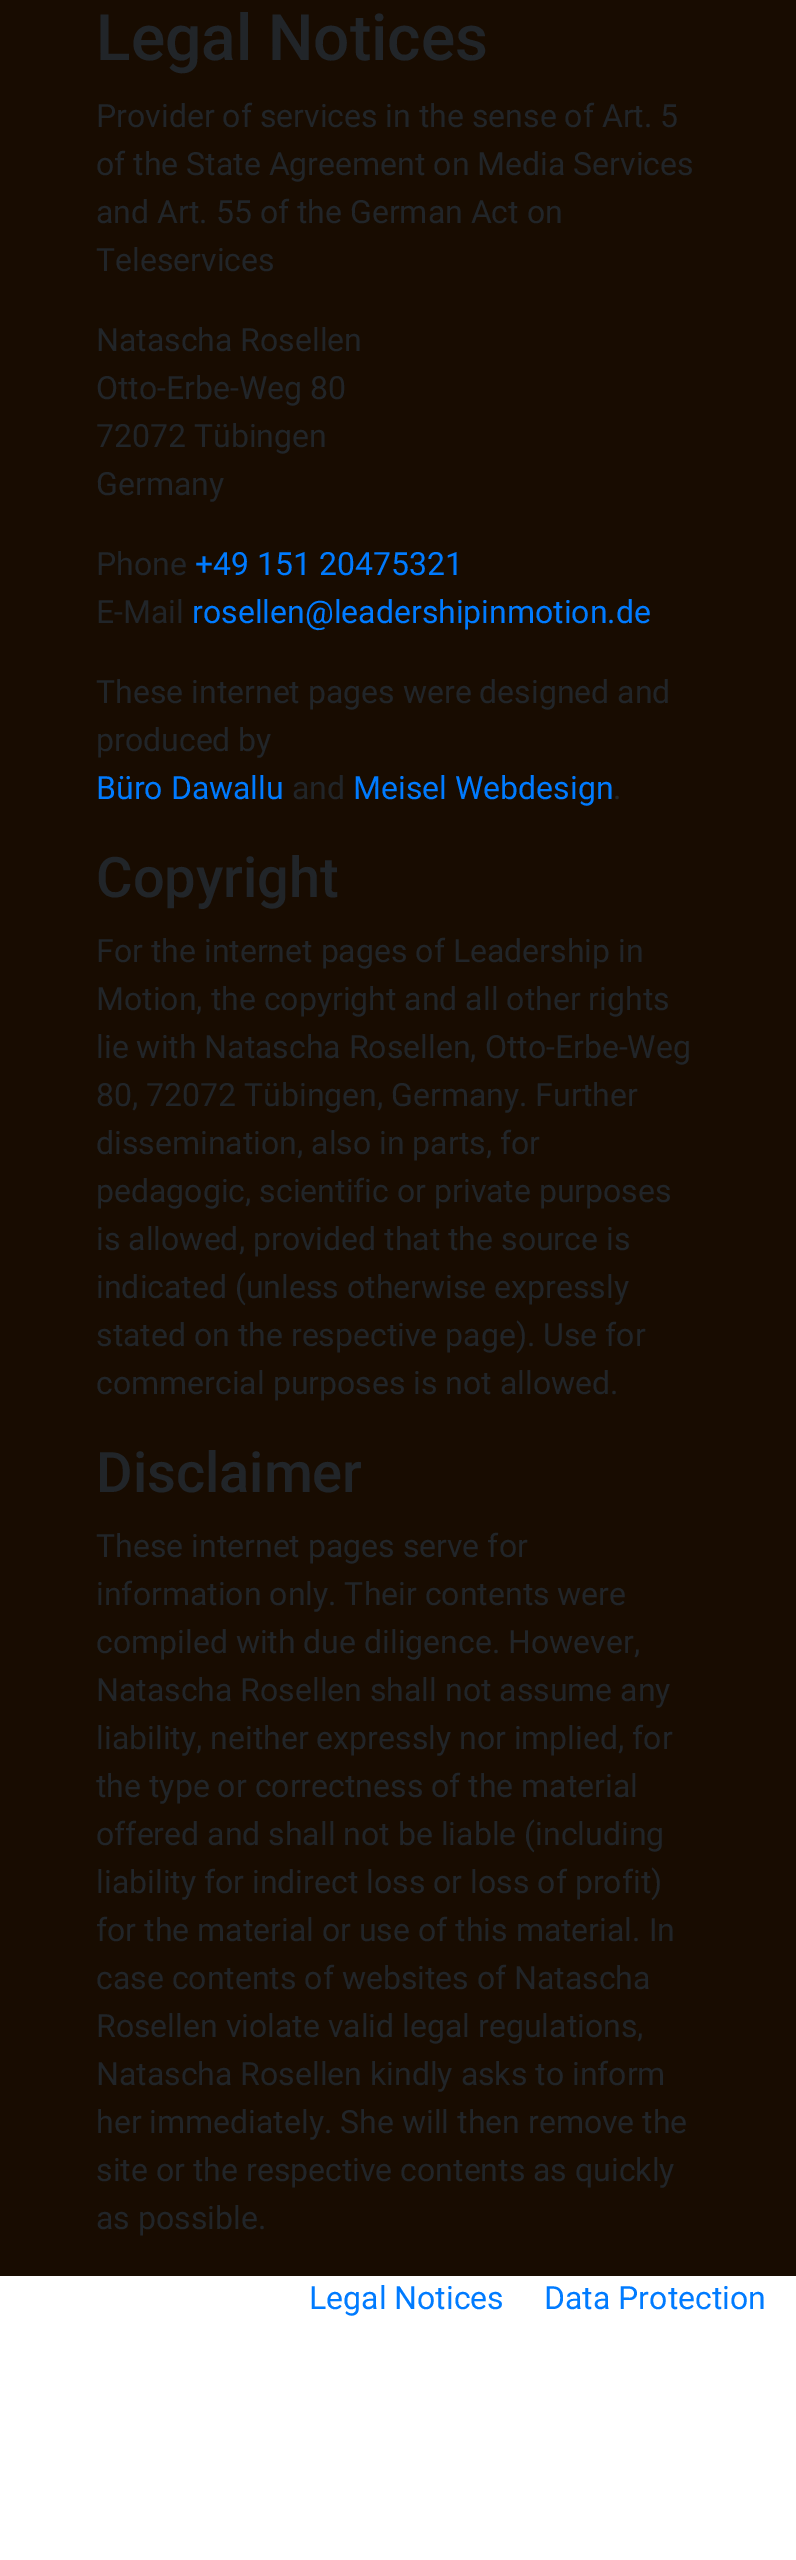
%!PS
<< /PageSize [796 2560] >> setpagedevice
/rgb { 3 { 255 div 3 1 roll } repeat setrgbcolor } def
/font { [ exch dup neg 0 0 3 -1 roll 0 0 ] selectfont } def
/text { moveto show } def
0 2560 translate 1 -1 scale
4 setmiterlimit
255 255 255 rgb
0 0 796 2560 rectfill
24 12 1 rgb
0 0 796 2276 rectfill
/Roboto-Medium 64 font
33 37 41 rgb
(Legal Notices) 96 60 text
/Roboto-Regular 32 font
(Provider of services in the sense of Art. 5) 96 127 text
(of the State Agreement on Media Services) 96 175 text
(and Art. 55 of the German Act on) 96 223 text
(Teleservices) 96 271 text
(Natascha Rosellen) 96 351 text
(Otto-Erbe-Weg 80) 96 399 text
(72072 Tübingen) 96 447 text
(Germany) 96 495 text
(Phone) 96 575 text
0 123 255 rgb
(+49 151 20475321) 195 575 text
33 37 41 rgb
(E-Mail) 96 623 text
0 123 255 rgb
(rosellen@leadershipinmotion.de) 192 623 text
33 37 41 rgb
(These internet pages were designed and) 96 703 text
(produced by) 96 751 text
0 123 255 rgb
(Büro Dawallu) 96 799 text
33 37 41 rgb
(and) 292 799 text
0 123 255 rgb
(Meisel Webdesign) 353 799 text
33 37 41 rgb
(.) 613 799 text
/Roboto-Medium 56 font
(Copyright) 96 897 text
/Roboto-Regular 32 font
(For the internet pages of Leadership in) 96 962 text
(Motion, the copyright and all other rights) 96 1010 text
(lie with Natascha Rosellen, Otto-Erbe-Weg) 96 1058 text
(80, 72072 Tübingen, Germany. Further) 96 1106 text
(dissemination, also in parts, for) 96 1154 text
(pedagogic, scientific or private purposes) 96 1202 text
(is allowed, provided that the source is) 96 1250 text
(indicated \(unless otherwise expressly) 96 1298 text
(stated on the respective page\). Use for) 96 1346 text
(commercial purposes is not allowed.) 96 1394 text
/Roboto-Medium 56 font
(Disclaimer) 96 1492 text
/Roboto-Regular 32 font
(These internet pages serve for) 96 1557 text
(information only. Their contents were) 96 1605 text
(compiled with due diligence. However,) 96 1653 text
(Natascha Rosellen shall not assume any) 96 1701 text
(liability, neither expressly nor implied, for) 96 1749 text
(the type or correctness of the material) 96 1797 text
(offered and shall not be liable \(including) 96 1845 text
(liability for indirect loss or loss of profit\)) 96 1893 text
(for the material or use of this material. In) 96 1941 text
(case contents of websites of Natascha) 96 1989 text
(Rosellen violate valid legal regulations,) 96 2037 text
(Natascha Rosellen kindly asks to inform) 96 2085 text
(her immediately. She will then remove the) 96 2133 text
(site or the respective contents as quickly) 96 2181 text
(as possible.) 96 2229 text
0 123 255 rgb
(Legal Notices) 309 2309 text
(Data Protection) 544 2309 text
showpage
